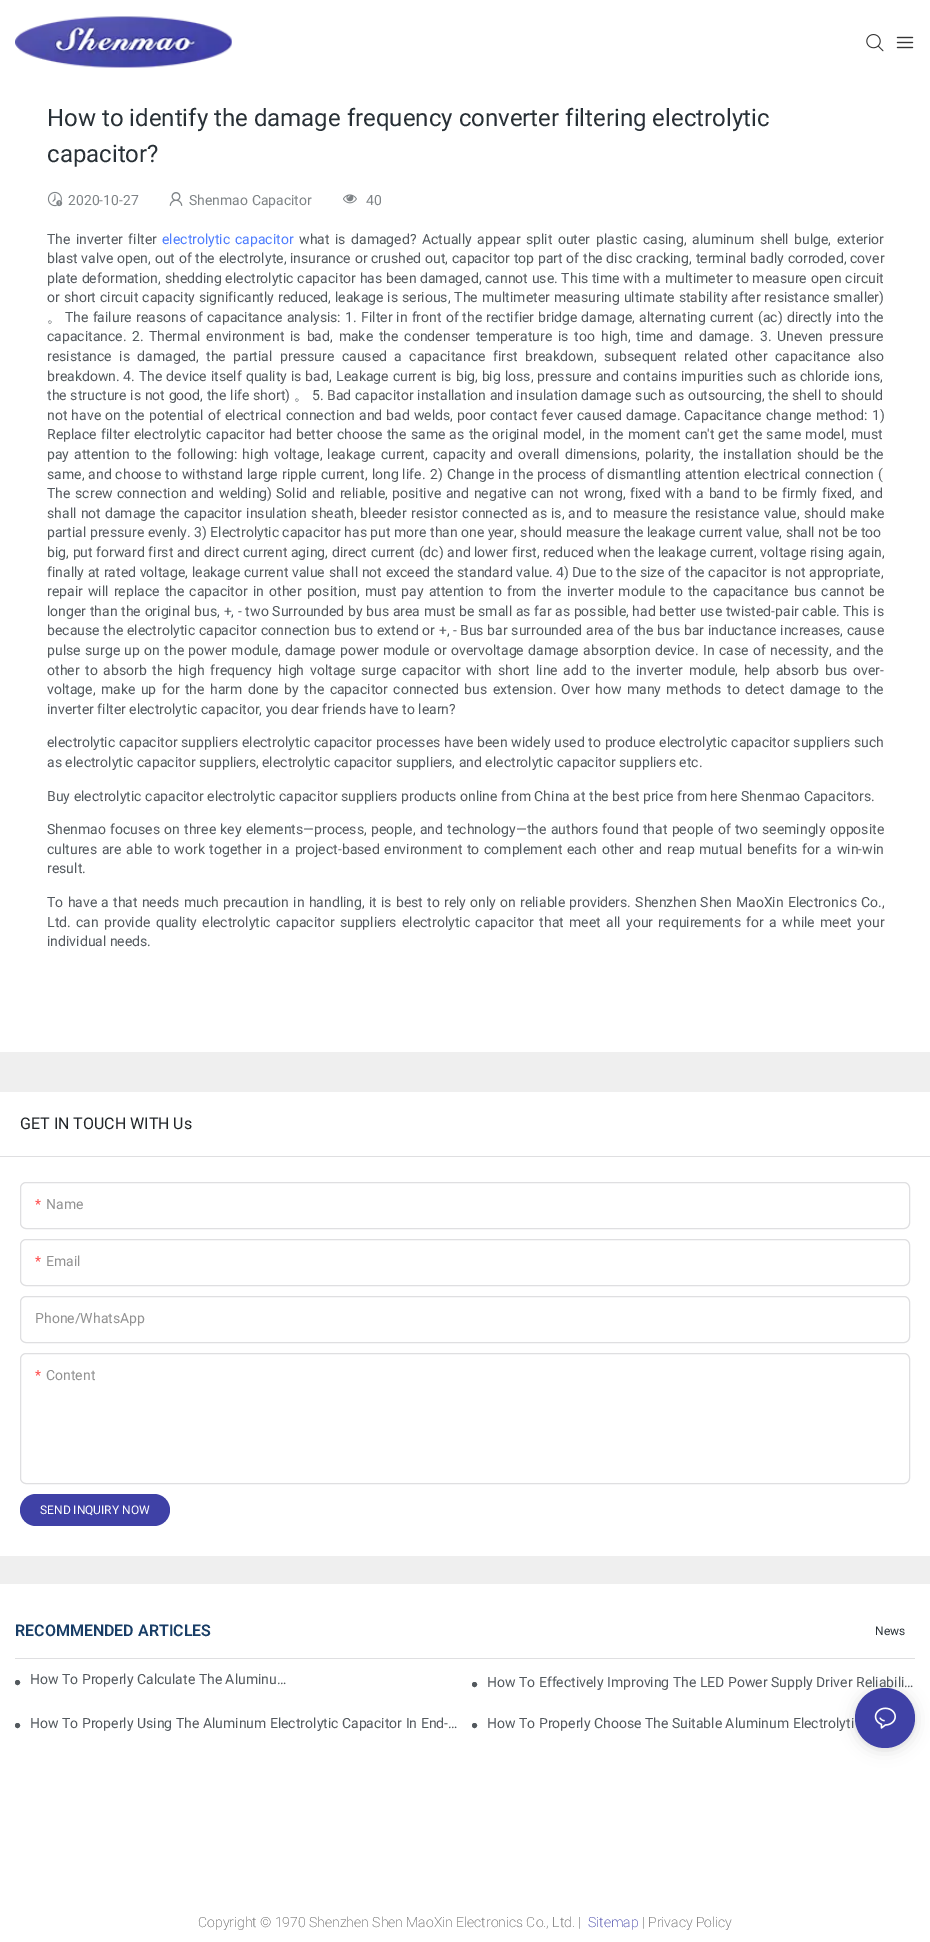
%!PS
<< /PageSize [930 1942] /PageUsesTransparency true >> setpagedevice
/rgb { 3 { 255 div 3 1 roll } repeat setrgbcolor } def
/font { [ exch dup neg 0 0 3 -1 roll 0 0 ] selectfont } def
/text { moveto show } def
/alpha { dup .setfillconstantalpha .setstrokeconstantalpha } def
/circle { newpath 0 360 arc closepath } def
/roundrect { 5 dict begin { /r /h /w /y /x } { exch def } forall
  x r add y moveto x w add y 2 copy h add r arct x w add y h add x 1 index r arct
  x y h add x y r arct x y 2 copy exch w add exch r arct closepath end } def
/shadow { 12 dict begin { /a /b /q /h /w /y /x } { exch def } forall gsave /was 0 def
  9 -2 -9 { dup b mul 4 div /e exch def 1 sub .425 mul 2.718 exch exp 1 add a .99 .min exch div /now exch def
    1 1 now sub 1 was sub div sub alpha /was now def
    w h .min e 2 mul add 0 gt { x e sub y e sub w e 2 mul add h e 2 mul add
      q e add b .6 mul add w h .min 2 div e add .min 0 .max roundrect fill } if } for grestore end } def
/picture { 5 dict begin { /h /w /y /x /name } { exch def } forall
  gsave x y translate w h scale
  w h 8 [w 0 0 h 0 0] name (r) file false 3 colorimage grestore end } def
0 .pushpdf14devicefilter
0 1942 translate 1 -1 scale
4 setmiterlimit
255 255 255 rgb
0 0 930 1942 rectfill
(img_01.rgb) 15 16 217 52 picture
(img_02.rgb) 866 34 18 18 picture
(img_03.rgb) 896 36 18 13 picture
239 239 239 rgb
0 1052 930 532 rectfill
(img_04.rgb) 47 191 16 16 picture
(img_05.rgb) 169 192 14 14 picture
(img_06.rgb) 343 194 14 10 picture
255 255 255 rgb
0 1092 930 464 rectfill
223 223 225 rgb
0 1156 930 1 rectfill
20.5 1182.5 889 46 5.5 roundrect stroke
20.5 1239.5 889 46 5.5 roundrect stroke
20.5 1296.5 889 46 5.5 roundrect stroke
20.5 1353.5 889 130 5.5 roundrect stroke
63 65 166 rgb
20 1494 150 32 16 roundrect fill
223 223 225 rgb
15 1658 900 1 rectfill
92 92 92 rgb
17.5 1682.5 1.5 circle gsave fill grestore
83 89 94 rgb
2 setlinewidth
stroke
92 92 92 rgb
474.5 1684.5 1.5 circle gsave fill grestore
83 89 94 rgb
stroke
92 92 92 rgb
17.5 1725.5 1.5 circle gsave fill grestore
83 89 94 rgb
stroke
92 92 92 rgb
474.5 1725.5 1.5 circle gsave fill grestore
83 89 94 rgb
stroke
0 0 0 rgb
855 1690 60 60 30 8 0.12 shadow
855 1689 60 60 30 2 0.06 shadow
/Roboto-Regular 24 font
40 48 54 rgb
(How to identify the damage frequency converter filtering electrolytic) 47 126 text
(capacitor?) 47 162 text
/Roboto-Regular 14 font
126 131 134 rgb
(2020-10-27) 68 205 text
(Shenmao Capacitor) 189 205 text
(40) 366 205 text
83 89 94 rgb
47 244 moveto 2 0 32 (The inverter filter) widthshow
77 124 254 rgb
(electrolytic) 162 244 text
(capacitor) 235 244 text
83 89 94 rgb
299 244 moveto 2 0 32 (what is damaged?) widthshow
422 244 moveto 2 0 32 (Actually appear split outer plastic casing, aluminum shell bulge, exterior) widthshow
47 263 moveto 0.25 0 32 (blast valve open, out of the electrolyte, insurance or crushed out, capacitor top part of the disc cracking, terminal badly corroded, cover) widthshow
47 283 moveto 0.25 0 32 (plate deformation, shedding electrolytic capacitor has been damaged, cannot use. This time with a multimeter to measure open circuit) widthshow
47 302 moveto 0.5 0 32 (or short circuit capacity significantly reduced, leakage is serious, The multimeter measuring ultimate stability after resistance smaller\)) widthshow
/WenQuanYiZenHei-Medium 14 font
(。) 47 322 text
/Roboto-Regular 14 font
65 322 moveto 0.6 0 32 (The failure reasons of capacitance analysis: 1.) widthshow
361 322 moveto 0.6 0 32 (Filter in front of the rectifier bridge damage, alternating current \(ac\) directly into the) widthshow
(capacitance.) 47 341 text
(2.) 132 341 text
149 341 moveto 2.4 0 32 (Thermal environment is bad, make the condenser temperature is too high, time and damage.) widthshow
(3.) 760 341 text
777 341 moveto 2.4 0 32 (Uneven pressure) widthshow
47 361 moveto 4 0 32 (resistance is damaged, the partial pressure caused a capacitance first breakdown, subsequent related other capacitance also) widthshow
(breakdown.) 47 381 text
(4.) 123 381 text
139 381 moveto 0.5 0 32 (The device itself quality is bad,) widthshow
336 381 moveto 0.6 0 32 (Leakage current is big, big loss, pressure and contains impurities such as chloride ions,) widthshow
47 400 moveto 0.25 0 32 (the structure is not good, the life short\)) widthshow
/WenQuanYiZenHei-Medium 14 font
(。) 294 400 text
/Roboto-Regular 14 font
(5.) 312 400 text
327 400 moveto 0.25 0 32 (Bad capacitor installation and insulation damage such as outsourcing, the shell to should) widthshow
47 420 moveto 0.7 0 32 (not have on the potential of electrical connection and bad welds, poor contact fever caused damage.) widthshow
684 420 moveto 1 0 32 (Capacitance change method: 1\)) widthshow
47 439 moveto 0.75 0 32 (Replace filter electrolytic capacitor had better choose the same as the original model, in the moment can't get the same model, must) widthshow
47 459 moveto 1.5 0 32 (pay attention to the following: high voltage, leakage current, capacity and overall dimensions, polarity, the installation should be the) widthshow
47 479 moveto 0.5 0 32 (same, and choose to withstand large ripple current, long life.) widthshow
430 479 moveto 0.5 0 32 (2\) Change in the process of dismantling attention electrical connection \() widthshow
47 498 moveto 1.25 0 32 (The screw connection and welding\)) widthshow
276 498 moveto 1.25 0 32 (Solid and reliable, positive and negative can not wrong, fixed with a band to be firmly fixed, and) widthshow
47 518 moveto 0.7 0 32 (shall not damage the capacitor insulation sheath, bleeder resistor connected as is, and to measure the resistance value, should make) widthshow
(partial pressure evenly. 3\) Electrolytic capacitor has put more than one year, should measure the leakage current value, shall not be too) 47 537 text
47 557 moveto 0.2 0 32 (big, put forward first and direct current aging, direct current \(dc\) and lower first, reduced when the leakage current, voltage rising again,) widthshow
47 577 moveto 0.25 0 32 (finally at rated voltage, leakage current value shall not exceed the standard value.) widthshow
(4\)) 556 577 text
572 577 moveto 0.25 0 32 (Due to the size of the capacitor is not appropriate,) widthshow
47 596 moveto 1.6 0 32 (repair will replace the capacitor in other position, must pay attention to from the inverter module to the capacitance bus cannot be) widthshow
47 616 moveto 0.2 0 32 (longer than the original bus, +, - two Surrounded by bus area must be small as far as possible, had better use twisted-pair cable.) widthshow
(This is) 843 616 text
47 635 moveto 0.25 0 32 (because the electrolytic capacitor connection bus to extend or +, -) widthshow
460 635 moveto 0.25 0 32 (Bus bar surrounded area of the bus bar inductance increases, cause) widthshow
47 655 moveto 0.9 0 32 (pulse surge up on the power module, damage power module or overvoltage damage absorption device.) widthshow
703 655 moveto 0.9 0 32 (In case of necessity, and the) widthshow
47 675 moveto 2.2 0 32 (other to absorb the high frequency high voltage surge capacitor with short line add to the inverter module, help absorb bus over-) widthshow
47 694 moveto 2 0 32 (voltage, make up for the harm done by the capacitor connected bus extension.) widthshow
561 694 moveto 2 0 32 (Over how many methods to detect damage to the) widthshow
(inverter filter electrolytic capacitor, you dear friends have to learn?) 47 714 text
47 747 moveto 0.25 0 32 (electrolytic capacitor suppliers electrolytic capacitor processes have been widely used to produce electrolytic capacitor suppliers such) widthshow
(as electrolytic capacitor suppliers, electrolytic capacitor suppliers, and electrolytic capacitor suppliers etc.) 47 767 text
(Buy electrolytic capacitor electrolytic capacitor suppliers products online from China at the best price from here Shenmao Capacitors.) 47 801 text
47 834 moveto 0.75 0 32 (Shenmao focuses on three key elements—process, people, and technology—the authors found that people of two seemingly opposite) widthshow
47 854 moveto 1.2 0 32 (cultures are able to work together in a project-based environment to complement each other and reap mutual benefits for a win-win) widthshow
(result.) 47 873 text
47 907 moveto 0.7 0 32 (To have a that needs much precaution in handling, it is best to rely only on reliable providers. Shenzhen Shen MaoXin Electronics Co.,) widthshow
47 927 moveto 1.9 0 32 (Ltd. can provide quality electrolytic capacitor suppliers electrolytic capacitor that meet all your requirements for a while meet your) widthshow
(individual needs.) 47 946 text
/Roboto-Regular 16 font
33 37 41 rgb
(GET IN TOUCH WITH Us) 20 1129 text
/Roboto-Regular 14 font
255 77 77 rgb
(*) 35 1209 text
145 145 145 rgb
(Name) 46 1209 text
255 77 77 rgb
(*) 35 1266 text
145 145 145 rgb
(Email) 46 1266 text
(Phone/WhatsApp) 35 1323 text
255 77 77 rgb
(*) 35 1380 text
145 145 145 rgb
(Content) 46 1380 text
/Roboto-Regular 12 font
255 255 255 rgb
(SEND INQUIRY NOW) 40 1514 text
/Roboto-SemiBold 16 font
24 61 102 rgb
(RECOMMENDED ARTICLES) 15 1636 text
/Roboto-Regular 12 font
40 48 54 rgb
(News) 875 1635 text
/Roboto-Regular 14 font
83 89 94 rgb
(How To Properly Calculate The Aluminu…) 30 1684 text
(How To Effectively Improving The LED Power Supply Driver Reliabili…) 487 1687 text
(How To Properly Using The Aluminum Electrolytic Capacitor In End-…) 30 1728 text
(How To Properly Choose The Suitable Aluminum Electrolyti) 487 1728 text
/Roboto-ExtraLight 14 font
98 98 98 rgb
(Copyright © 1970 Shenzhen Shen MaoXin Electronics Co., Ltd. |) 198 1927 text
63 65 166 rgb
(Sitemap) 588 1927 text
98 98 98 rgb
(| Privacy Policy) 642 1927 text
63 65 166 rgb
885 1718 30 circle fill
(img_07.rgb) 874 1707 22 22 picture
.poppdf14devicefilter showpage
